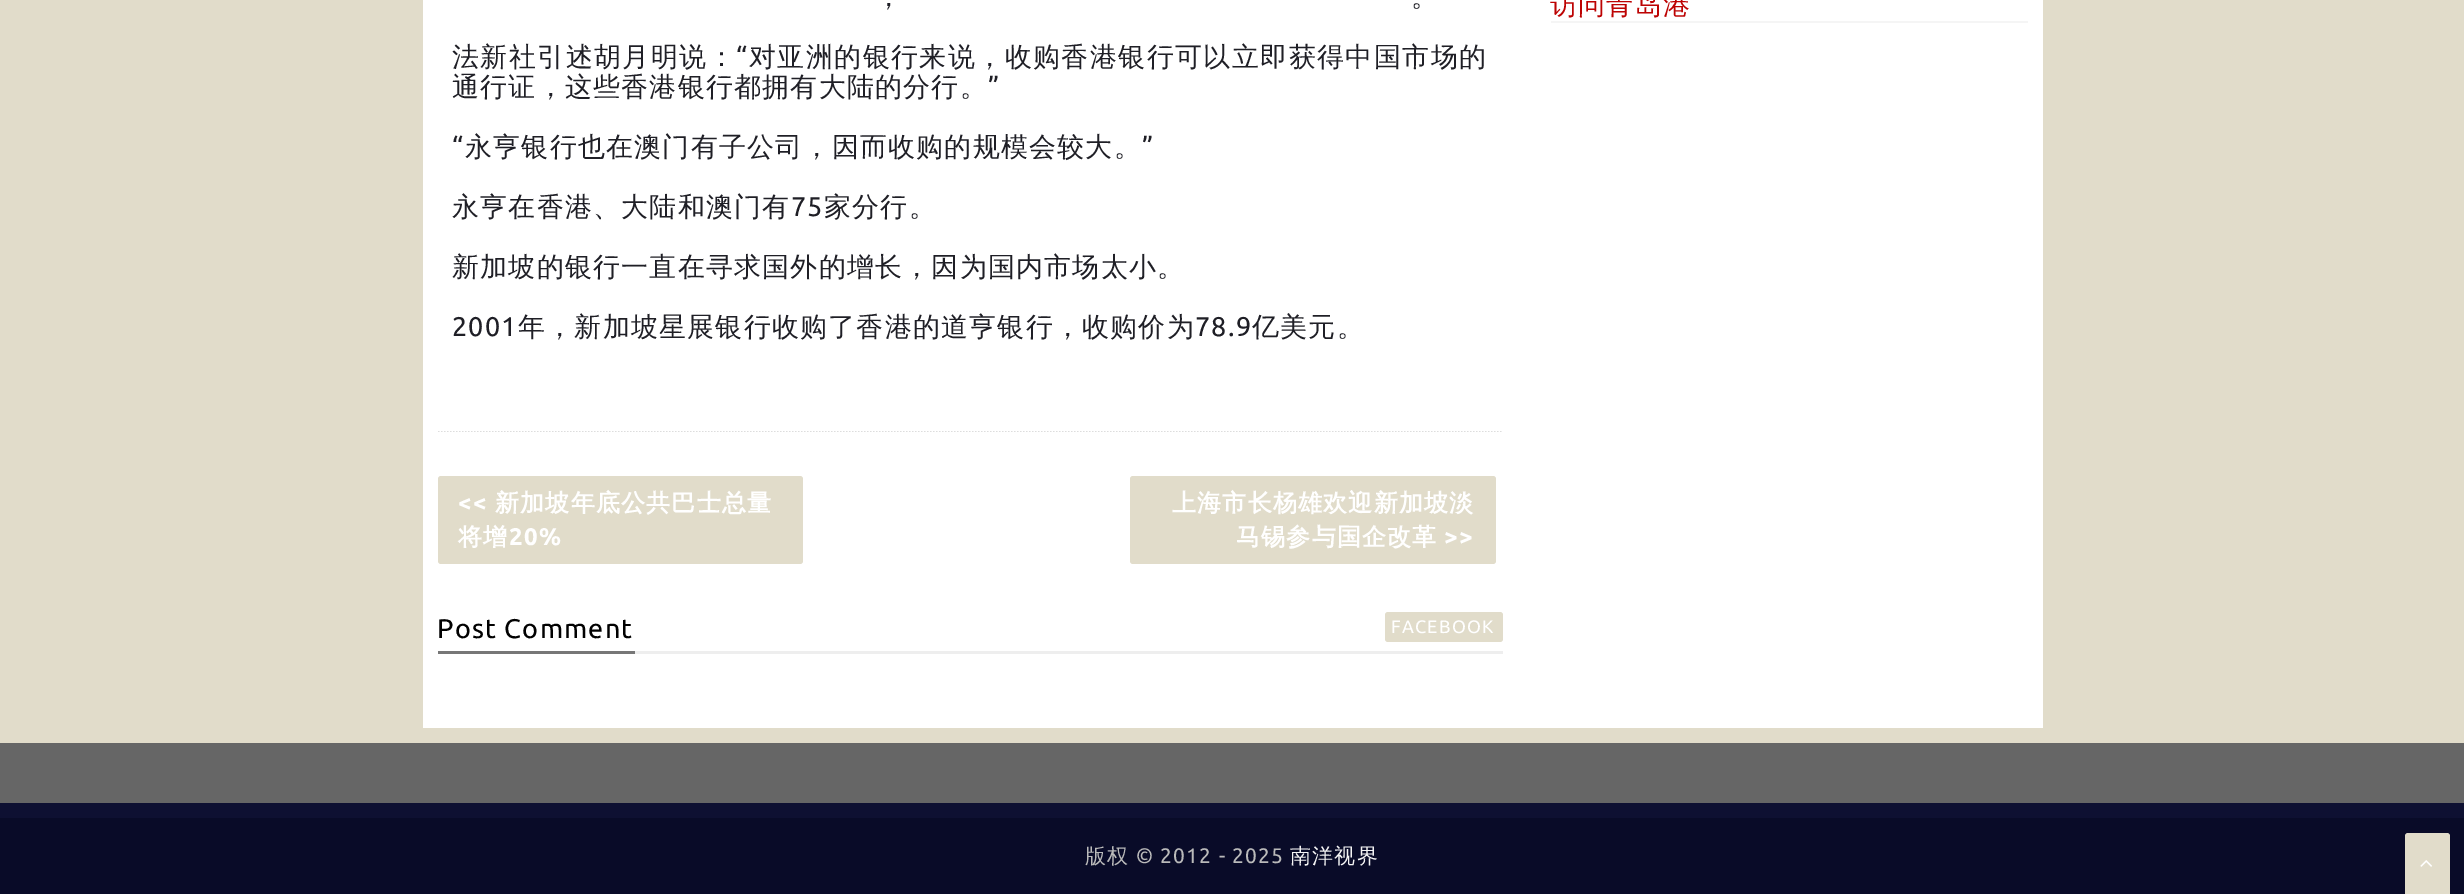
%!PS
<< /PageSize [2464 894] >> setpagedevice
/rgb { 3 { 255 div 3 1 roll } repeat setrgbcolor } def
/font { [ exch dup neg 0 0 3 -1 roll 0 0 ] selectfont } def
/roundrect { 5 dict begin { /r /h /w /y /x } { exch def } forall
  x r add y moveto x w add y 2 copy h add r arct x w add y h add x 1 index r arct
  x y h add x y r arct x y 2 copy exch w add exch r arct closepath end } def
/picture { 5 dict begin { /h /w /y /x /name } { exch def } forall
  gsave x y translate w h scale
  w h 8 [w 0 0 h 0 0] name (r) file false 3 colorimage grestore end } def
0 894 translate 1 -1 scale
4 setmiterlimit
225 220 202 rgb
0 0 2464 894 rectfill
255 255 255 rgb
423 0 1620 728 rectfill
221 221 221 rgb
1.5 setlinewidth
[1.5 1.5] 0 setdash
438 431 moveto 1065 0 rlineto stroke
255 255 255 rgb
438 430 1064 1 rectfill
225 220 202 rgb
438 476 365 88 3 roundrect fill
1130 476 366 88 3 roundrect fill
238 238 238 rgb
635 651 868 3 rectfill
119 119 119 rgb
438 651 197 3 rectfill
225 220 202 rgb
1385 612 118 30 3 roundrect fill
245 245 245 rgb
1551 21 477 2 rectfill
14 16 50 rgb
0 803 2464 15 rectfill
102 102 102 rgb
0 743 2464 60 rectfill
9 11 40 rgb
0 818 2464 76 rectfill
225 220 202 rgb
2408 833 moveto 39 0 rlineto 1.5 0 3 1.5 3 3 rcurveto 0 58 rlineto -45 0 rlineto 0 -58 rlineto 0 -1.5 1.5 -3 3 -3 rcurveto closepath fill
(img_01.rgb) 2420 860 12 7 picture
/WenQuanYiZenHei-Medium 27 font
31 31 38 rgb
875 6 moveto 1.2 0 (，) ashow
1411 6 moveto 1.2 0 (。) ashow
452 66 moveto 1.4 0 (法新社引述胡月明说：) ashow
/Ubuntu-Regular 27 font
736 66 moveto 1.4 0 (“) ashow
/WenQuanYiZenHei-Medium 27 font
749 66 moveto 1.4 0 (对亚洲的银行来说，收购香港银行可以立即获得中国市场的) ashow
452 96 moveto 1.2 0 (通行证，这些香港银行都拥有大陆的分行。) ashow
/Ubuntu-Regular 27 font
988 96 moveto 1.2 0 (”) ashow
452 156 moveto 1.2 0 (“) ashow
/WenQuanYiZenHei-Medium 27 font
465 156 moveto 1.2 0 (永亨银行也在澳门有子公司，因而收购的规模会较大。) ashow
/Ubuntu-Regular 27 font
1142 156 moveto 1.2 0 (”) ashow
/WenQuanYiZenHei-Medium 27 font
452 216 moveto 1.2 0 (永亨在香港、大陆和澳门有) ashow
/Ubuntu-Regular 27 font
791 216 moveto 1.2 0 (75) ashow
/WenQuanYiZenHei-Medium 27 font
824 216 moveto 1.2 0 (家分行。) ashow
452 276 moveto 1.2 0 (新加坡的银行一直在寻求国外的增长，因为国内市场太小。) ashow
/Ubuntu-Regular 27 font
452 336 moveto 1.2 0 (2001) ashow
/WenQuanYiZenHei-Medium 27 font
518 336 moveto 1.2 0 (年，新加坡星展银行收购了香港的道亨银行，收购价为) ashow
/Ubuntu-Regular 27 font
1195 336 moveto 1.2 0 (78.9) ashow
/WenQuanYiZenHei-Medium 27 font
1252 336 moveto 1.2 0 (亿美元。) ashow
/Ubuntu-Bold 24 font
255 255 255 rgb
458 511 moveto 1.2 0 (<<) ashow
/WenQuanYiZenHei-Bold 24 font
495 511 moveto 1.2 0 (新加坡年底公共巴士总量) ashow
458 545 moveto 1.2 0 (将增) ashow
/Ubuntu-Bold 24 font
509 545 moveto 1.2 0 (20%) ashow
/WenQuanYiZenHei-Bold 24 font
1172 511 moveto 1.2 0 (上海市长杨雄欢迎新加坡淡) ashow
1236 545 moveto 1.2 0 (马锡参与国企改革) ashow
/Ubuntu-Bold 24 font
1444 545 moveto 1.2 0 (>>) ashow
/Ubuntu-Regular 27 font
1 1 1 rgb
437 638 moveto 1.2 0 (Post Comment) ashow
/Ubuntu-Regular 18 font
255 255 255 rgb
1391 633 moveto 1.2 0 (FACEBOOK) ashow
/WenQuanYiZenHei-Medium 27 font
189 3 3 rgb
1550 14 moveto 1.2 0 (访问青岛港) ashow
/WenQuanYiZenHei-Medium 21 font
186 186 186 rgb
1085 863 moveto 1.2 0 (版权) ashow
/Ubuntu-Regular 21 font
1136 863 moveto 1.2 0 (© 2012 - 2025) ashow
/WenQuanYiZenHei-Medium 21 font
244 244 244 rgb
1290 863 moveto 1.2 0 (南洋视界) ashow
showpage
